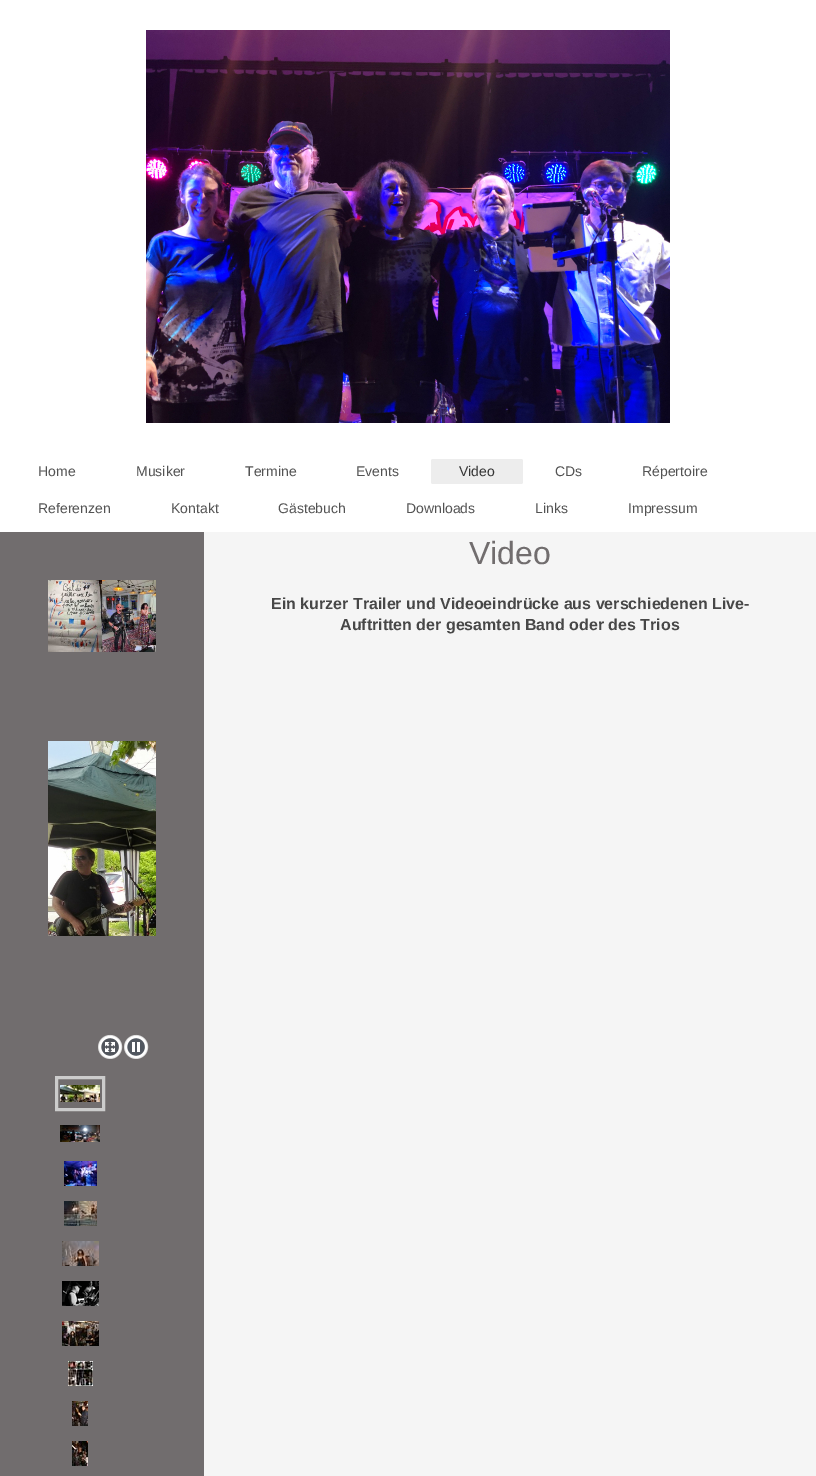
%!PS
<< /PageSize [816 1476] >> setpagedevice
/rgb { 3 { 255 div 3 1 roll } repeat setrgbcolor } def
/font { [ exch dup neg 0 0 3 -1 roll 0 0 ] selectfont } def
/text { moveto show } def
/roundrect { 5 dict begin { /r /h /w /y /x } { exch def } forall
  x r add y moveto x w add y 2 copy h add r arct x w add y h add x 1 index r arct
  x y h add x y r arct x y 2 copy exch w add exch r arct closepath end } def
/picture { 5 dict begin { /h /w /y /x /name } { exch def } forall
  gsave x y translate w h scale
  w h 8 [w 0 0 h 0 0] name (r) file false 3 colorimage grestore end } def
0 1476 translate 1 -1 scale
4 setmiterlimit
255 255 255 rgb
0 0 816 1476 rectfill
(img_01.rgb) 146 30 524 393 picture
237 237 237 rgb
431 459 92 25 2 roundrect fill
113 109 110 rgb
0 532 204 944 rectfill
(img_02.rgb) 48 580 108 72 picture
(img_03.rgb) 48 741 108 195 picture
(img_04.rgb) 98 1034 25 25 picture
(img_05.rgb) 124 1034 25 25 picture
204 204 204 rgb
3 setlinewidth
56.5 1077.5 47 32 rectstroke
(img_06.rgb) 60 1085 40 17 picture
(img_07.rgb) 60 1125 40 17 picture
(img_08.rgb) 64 1161 33 25 picture
(img_09.rgb) 64 1201 33 25 picture
(img_10.rgb) 62 1241 37 25 picture
(img_11.rgb) 62 1281 37 25 picture
(img_12.rgb) 62 1321 37 25 picture
(img_13.rgb) 68 1361 25 25 picture
(img_14.rgb) 72 1401 16 25 picture
(img_15.rgb) 72 1441 16 25 picture
245 245 245 rgb
204 532 612 944 rectfill
/LiberationSans-Regular 14 font
83 83 83 rgb
(Home) 38 476 text
(Musiker) 136 476 text
(Termine) 245 476 text
(Events) 356 476 text
53 53 53 rgb
(Video) 459 476 text
83 83 83 rgb
(CDs) 555 476 text
(Répertoire) 642 476 text
(Referenzen) 38 513 text
(Kontakt) 171 513 text
(Gästebuch) 278 513 text
(Downloads) 406 513 text
(Links) 535 513 text
(Impressum) 628 513 text
/LiberationSans-Regular 32 font
113 109 110 rgb
(Video) 469 564 text
/LiberationSans-Bold 16 font
71 71 71 rgb
(Ein kurzer Trailer und Videoeindrücke aus verschiedenen Live-) 271 609 text
(Auftritten der gesamten Band oder des Trios) 340 630 text
showpage
